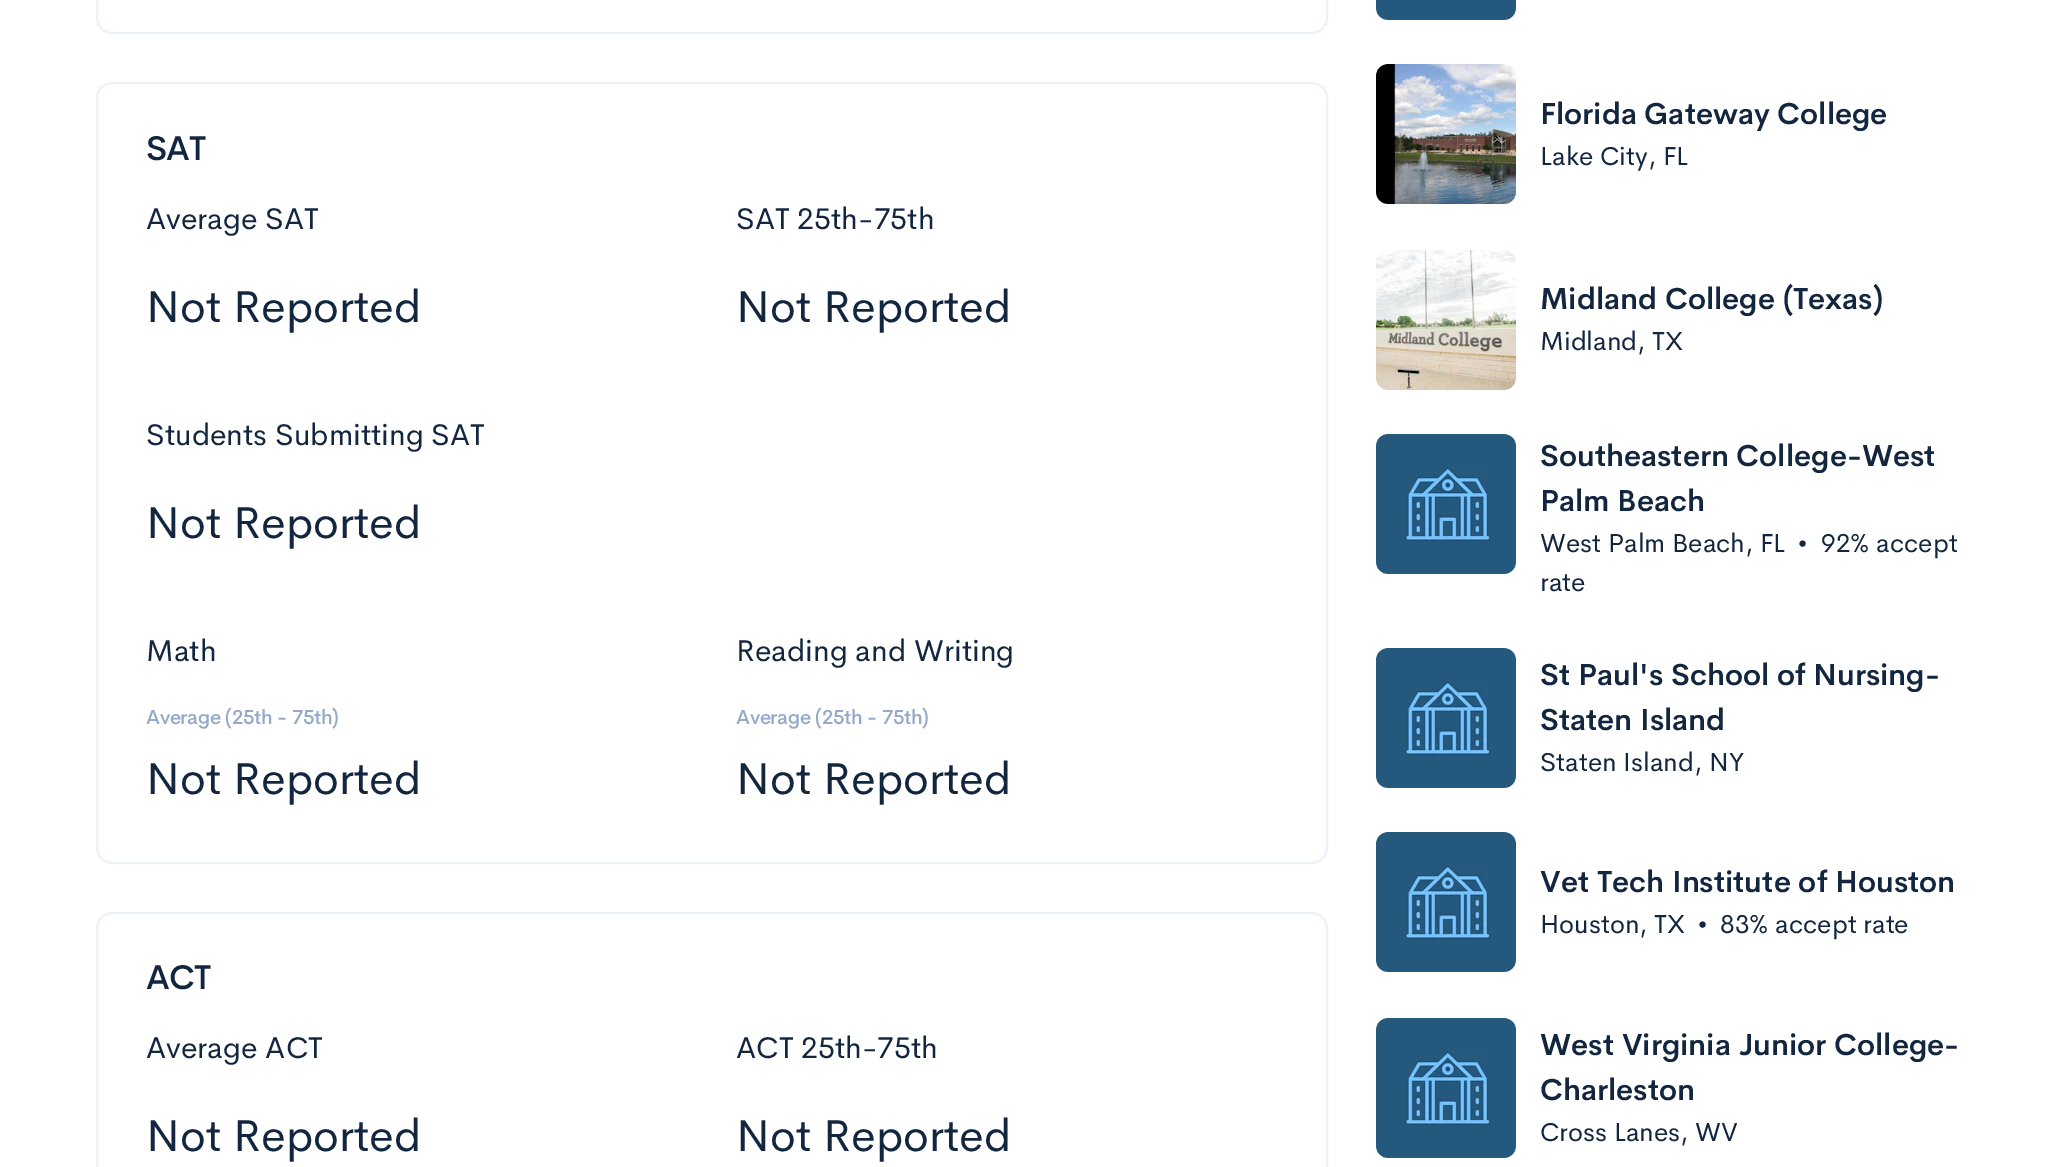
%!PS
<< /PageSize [2063 1167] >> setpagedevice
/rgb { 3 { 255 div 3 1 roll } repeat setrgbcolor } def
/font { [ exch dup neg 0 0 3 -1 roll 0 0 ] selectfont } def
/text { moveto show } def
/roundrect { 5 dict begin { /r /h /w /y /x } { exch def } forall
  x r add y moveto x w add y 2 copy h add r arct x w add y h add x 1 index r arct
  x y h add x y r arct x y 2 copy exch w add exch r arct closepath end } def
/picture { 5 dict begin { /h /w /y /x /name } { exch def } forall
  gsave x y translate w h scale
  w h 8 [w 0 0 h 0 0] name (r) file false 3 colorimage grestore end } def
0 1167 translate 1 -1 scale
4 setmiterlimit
255 255 255 rgb
0 0 2063 1167 rectfill
237 242 249 rgb
2 setlinewidth
97 -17 1230 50 15 roundrect stroke
97 83 1230 780 15 roundrect stroke
97 913 1230 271 15 roundrect stroke
(img_01.rgb) 1376 0 140 20 picture
(img_02.rgb) 1376 64 140 140 picture
(img_03.rgb) 1376 250 140 140 picture
(img_04.rgb) 1376 434 140 140 picture
(img_04.rgb) 1376 648 140 140 picture
(img_04.rgb) 1376 832 140 140 picture
(img_04.rgb) 1376 1018 140 140 picture
/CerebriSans-Medium 34 font
18 38 63 rgb
146 160 moveto -1 0 (SAT) ashow
/CerebriSans-Regular 30 font
(Average SAT) 146 229 text
/CerebriSans-Regular 44.75 font
(Not Reported) 146 322 text
/CerebriSans-Regular 30 font
(SAT 25th-75th) 736 229 text
/CerebriSans-Regular 44.75 font
(Not Reported) 736 322 text
/CerebriSans-Regular 30 font
(Students Submitting SAT) 146 445 text
/CerebriSans-Regular 44.75 font
(Not Reported) 146 538 text
/CerebriSans-Regular 30 font
(Math) 146 661 text
/CerebriSans-Medium 20 font
149 170 201 rgb
146 724 moveto -0.4 0 (Average \(25th - 75th\)) ashow
/CerebriSans-Regular 44.75 font
18 38 63 rgb
(Not Reported) 146 794 text
/CerebriSans-Regular 30 font
(Reading and Writing) 736 661 text
/CerebriSans-Medium 20 font
149 170 201 rgb
736 724 moveto -0.4 0 (Average \(25th - 75th\)) ashow
/CerebriSans-Regular 44.75 font
18 38 63 rgb
(Not Reported) 736 794 text
/CerebriSans-Medium 34 font
146 989 moveto -1 0 (ACT) ashow
/CerebriSans-Regular 30 font
(Average ACT) 146 1058 text
/CerebriSans-Regular 44.75 font
(Not Reported) 146 1151 text
/CerebriSans-Regular 30 font
(ACT 25th-75th) 736 1058 text
/CerebriSans-Regular 44.75 font
(Not Reported) 736 1151 text
/CerebriSans-SemiBold 30 font
(Florida Gateway College) 1540 124 text
/CerebriSans-Regular 26 font
(Lake City, FL) 1540 165 text
/CerebriSans-SemiBold 30 font
(Midland College \(Texas\)) 1540 309 text
/CerebriSans-Regular 26 font
(Midland, TX) 1540 350 text
/CerebriSans-SemiBold 30 font
(Southeastern College-West) 1540 466 text
(Palm Beach) 1540 511 text
/CerebriSans-Regular 26 font
(West Palm Beach, FL) 1540 552 text
(•) 1797 552 text
(92% accept) 1821 552 text
(rate) 1540 591 text
/CerebriSans-SemiBold 30 font
(St Paul's School of Nursing-) 1540 685 text
(Staten Island) 1540 730 text
/CerebriSans-Regular 26 font
(Staten Island, NY) 1540 771 text
/CerebriSans-SemiBold 30 font
(Vet Tech Institute of Houston) 1540 892 text
/CerebriSans-Regular 26 font
(Houston, TX) 1540 933 text
(•) 1697 933 text
(83% accept rate) 1720 933 text
/CerebriSans-SemiBold 30 font
(West Virginia Junior College-) 1540 1055 text
(Charleston) 1540 1100 text
/CerebriSans-Regular 26 font
(Cross Lanes, WV) 1540 1141 text
showpage
